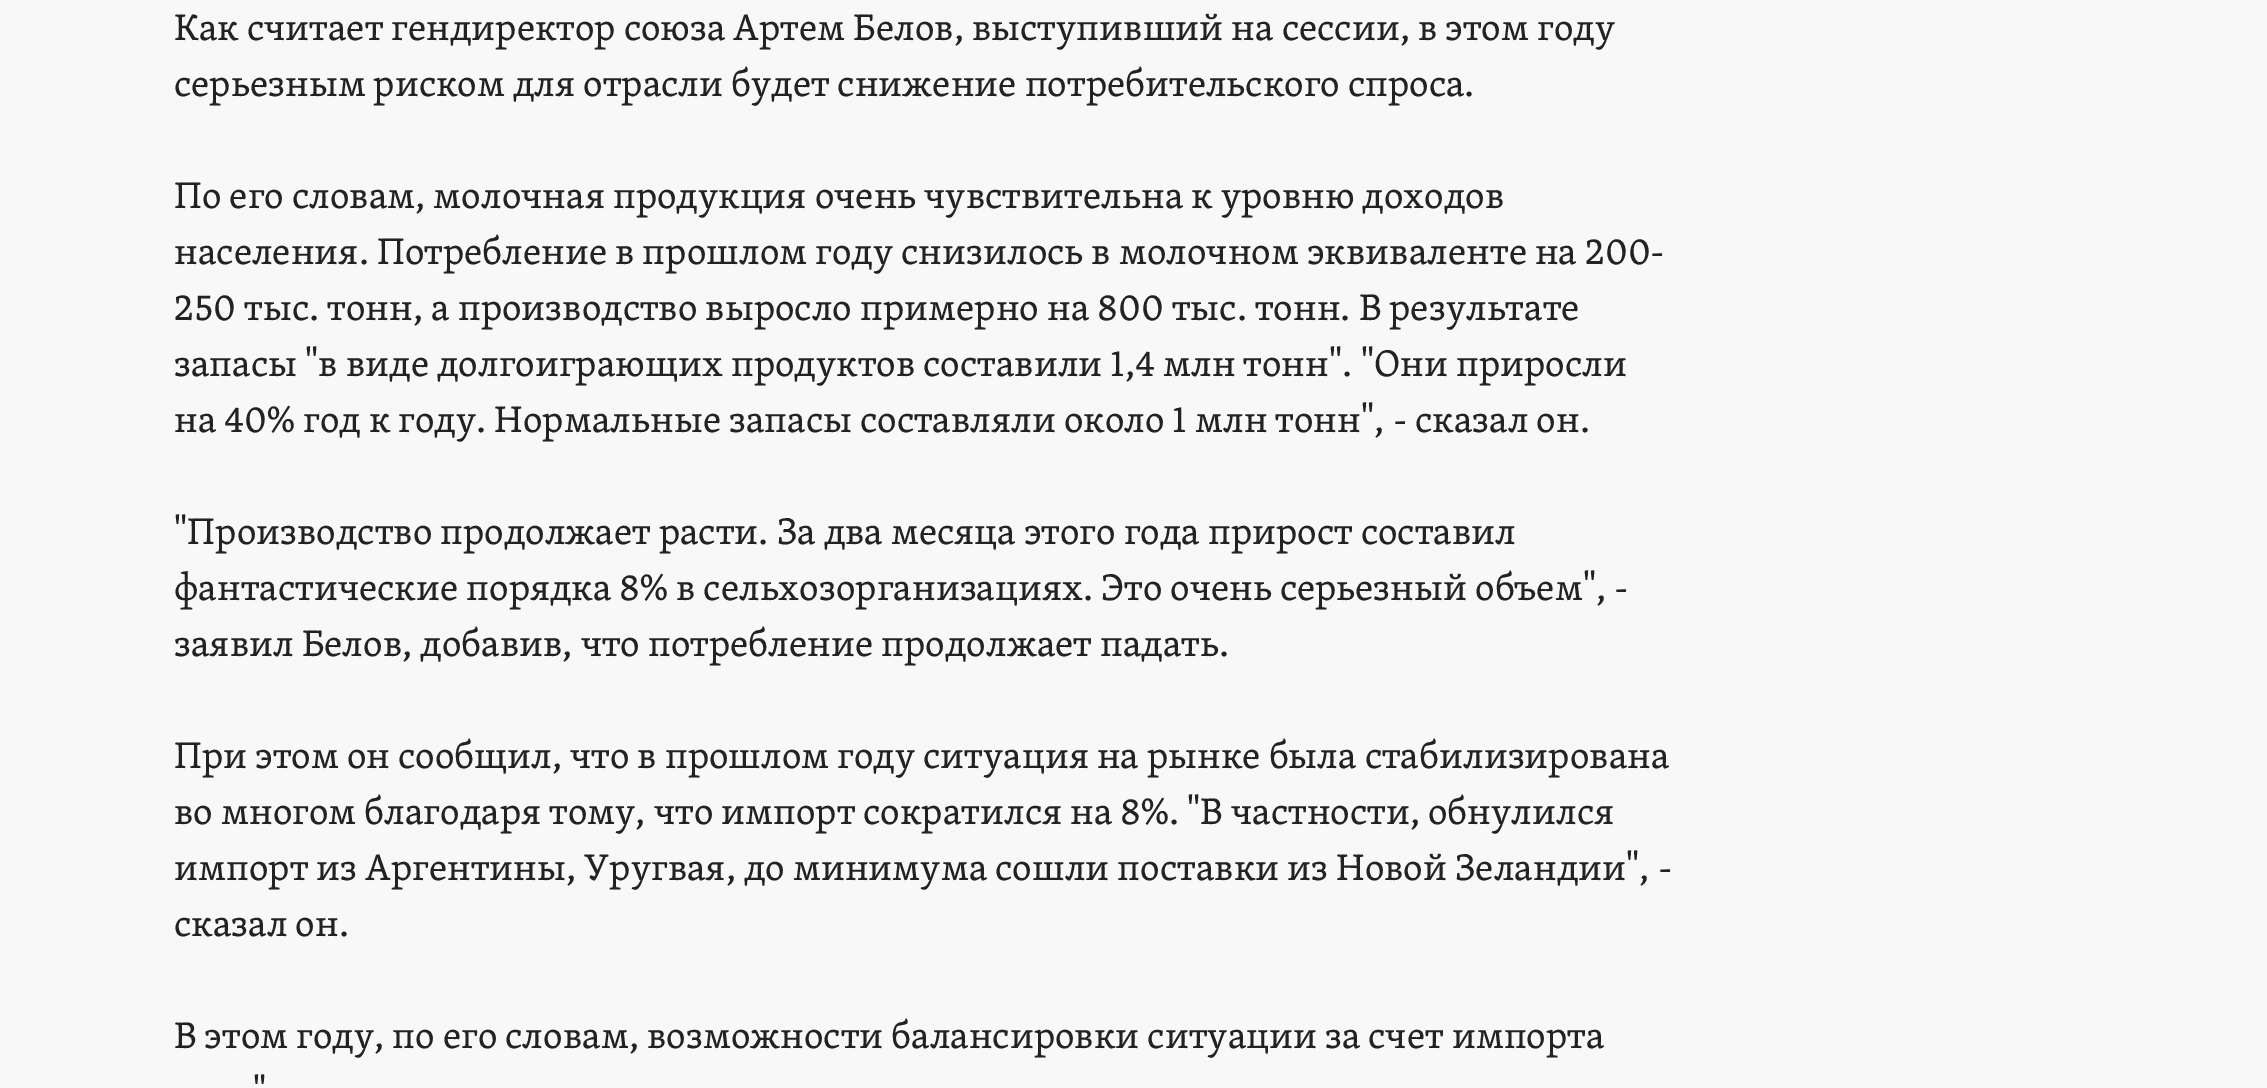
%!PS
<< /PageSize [2267 1088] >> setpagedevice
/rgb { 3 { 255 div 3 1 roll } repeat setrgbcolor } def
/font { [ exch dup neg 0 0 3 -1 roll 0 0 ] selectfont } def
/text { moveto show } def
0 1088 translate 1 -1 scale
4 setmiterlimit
248 248 248 rgb
0 0 2267 1088 rectfill
/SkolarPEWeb-Regular 38 font
34 34 34 rgb
(Как считает гендиректор союза Артем Белов, выступивший на сессии, в этом году) 174 40 text
(серьезным риском для отрасли будет снижение потребительского спроса.) 174 96 text
(По его словам, молочная продукция очень чувствительна к уровню доходов) 174 208 text
(населения. Потребление в прошлом году снизилось в молочном эквиваленте на 200-) 174 264 text
(250 тыс. тонн, а производство выросло примерно на 800 тыс. тонн. В результате) 174 320 text
(запасы "в виде долгоиграющих продуктов составили 1,4 млн тонн". "Они приросли) 174 376 text
(на 40% год к году. Нормальные запасы составляли около 1 млн тонн", - сказал он.) 174 432 text
("Производство продолжает расти. За два месяца этого года прирост составил) 174 544 text
(фантастические порядка 8% в сельхозорганизациях. Это очень серьезный объем", -) 174 600 text
(заявил Белов, добавив, что потребление продолжает падать.) 174 656 text
(При этом он сообщил, что в прошлом году ситуация на рынке была стабилизирована) 174 768 text
(во многом благодаря тому, что импорт сократился на 8%. "В частности, обнулился) 174 824 text
(импорт из Аргентины, Уругвая, до минимума сошли поставки из Новой Зеландии", -) 174 880 text
(сказал он.) 174 936 text
(В этом году, по его словам, возможности балансировки ситуации за счет импорта) 174 1048 text
(") 253 1104 text
showpage
